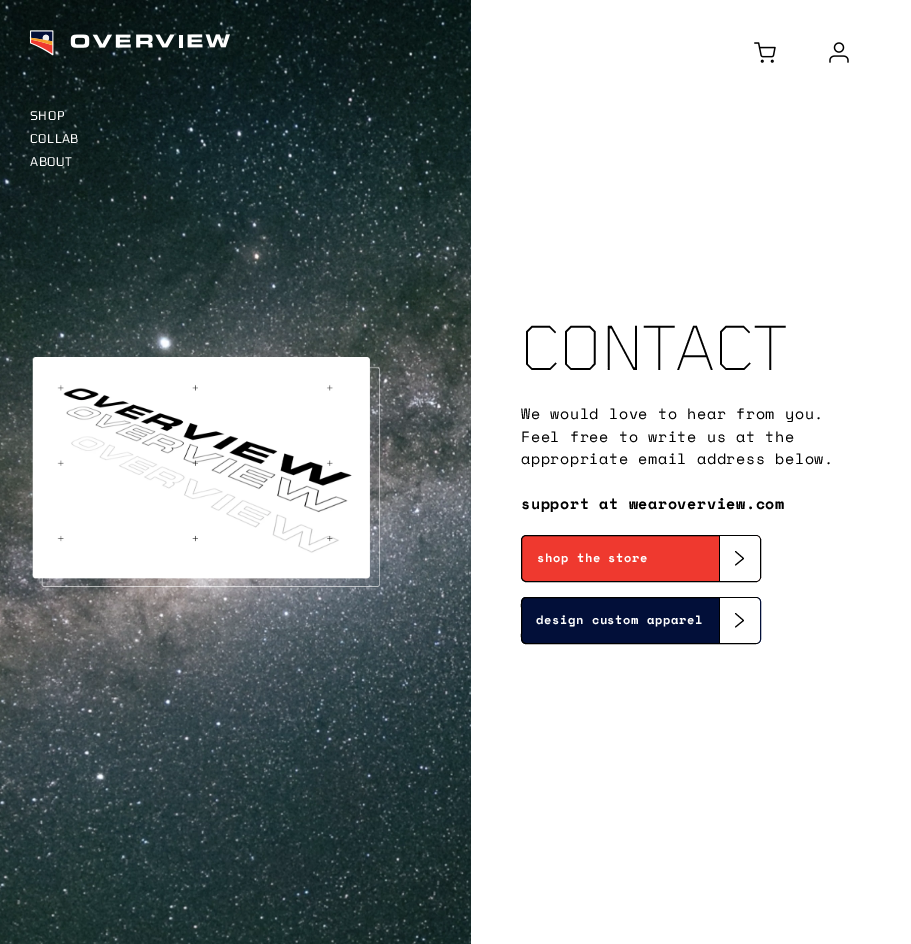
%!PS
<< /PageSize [911 944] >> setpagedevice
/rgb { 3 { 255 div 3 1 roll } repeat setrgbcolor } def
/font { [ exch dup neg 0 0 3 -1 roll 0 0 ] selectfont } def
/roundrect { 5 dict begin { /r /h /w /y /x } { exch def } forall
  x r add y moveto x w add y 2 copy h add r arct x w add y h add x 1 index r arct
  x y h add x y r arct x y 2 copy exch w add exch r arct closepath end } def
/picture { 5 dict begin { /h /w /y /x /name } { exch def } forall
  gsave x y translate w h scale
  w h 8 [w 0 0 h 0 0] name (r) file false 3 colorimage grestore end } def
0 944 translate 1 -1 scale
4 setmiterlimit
255 255 255 rgb
0 0 911 944 rectfill
(img_01.rgb) 754 42 22 21 picture
(img_02.rgb) 829 42 20 21 picture
(img_04.rgb) 0 0 471 944 picture
(img_03.rgb) 30 30 200 26 picture
(img_05.rgb) 32 357 348 230 picture
239 57 47 rgb
521.5 535.5 239 46 4.5 roundrect gsave fill grestore
0 0 0 rgb
stroke
719 536 1 45 rectfill
255 255 255 rgb
720 536 moveto 36 0 rlineto 2 0 4 2 4 4 rcurveto 0 37 rlineto 0 2 -2 4 -4 4 rcurveto -36 0 rlineto closepath fill
0 0 0 rgb
1 setlinecap
1 setlinejoin
735.5 565 moveto 8 -6.5 rlineto -8 -7 rlineto stroke
2 15 57 rgb
521 597 240 47 5 roundrect fill
0 setlinecap
0 setlinejoin
759 599 moveto 1 0.5 1.5 2 1.5 3 rcurveto 0 37 rlineto 0 1 -0.5 2.5 -1.5 3 rcurveto stroke
0 0 0 rgb
759 642 moveto -3 1.5 rlineto -230 0 rlineto -5.5 0 -4.5 -7 -4.5 -10.5 rcurveto 0 -25 rlineto 0 -3.5 -1 -10.5 4.5 -10.5 rcurveto 230.5 0 rlineto 2.5 1.5 rlineto stroke
719 598 1 45 rectfill
255 255 255 rgb
720 598 moveto 36 0 rlineto 2 0 4 2 4 4 rcurveto 0 37 rlineto 0 2 -2 4 -4 4 rcurveto -36 0 rlineto closepath fill
0 0 0 rgb
1 setlinecap
1 setlinejoin
735.5 627 moveto 8 -6.5 rlineto -8 -7 rlineto stroke
/Tomorrow-Regular 12 font
255 255 255 rgb
30 120 moveto 0.6 0 (SHOP) ashow
30 143 moveto 0.6 0 (COLLAB) ashow
30 166 moveto 0.6 0 (ABOUT) ashow
/Tomorrow-ExtraLight 60 font
0 0 0 rgb
521 370 moveto 0.6 0 (CONTACT) ashow
/SpaceMono-Regular 15 font
521 419 moveto 0.6 0 (We would love to hear from you.) ashow
521 442 moveto 0.6 0 (Feel free to write us at the) ashow
521 464 moveto 0.6 0 (appropriate email address below.) ashow
/SpaceMono-Bold 15 font
521 509 moveto 0.6 0 (support at wearoverview.com) ashow
/SpaceMono-Bold 12 font
255 255 255 rgb
537 562 moveto 0.6 0 (shop the store) ashow
536 624 moveto 0.6 0 (design custom apparel) ashow
showpage
